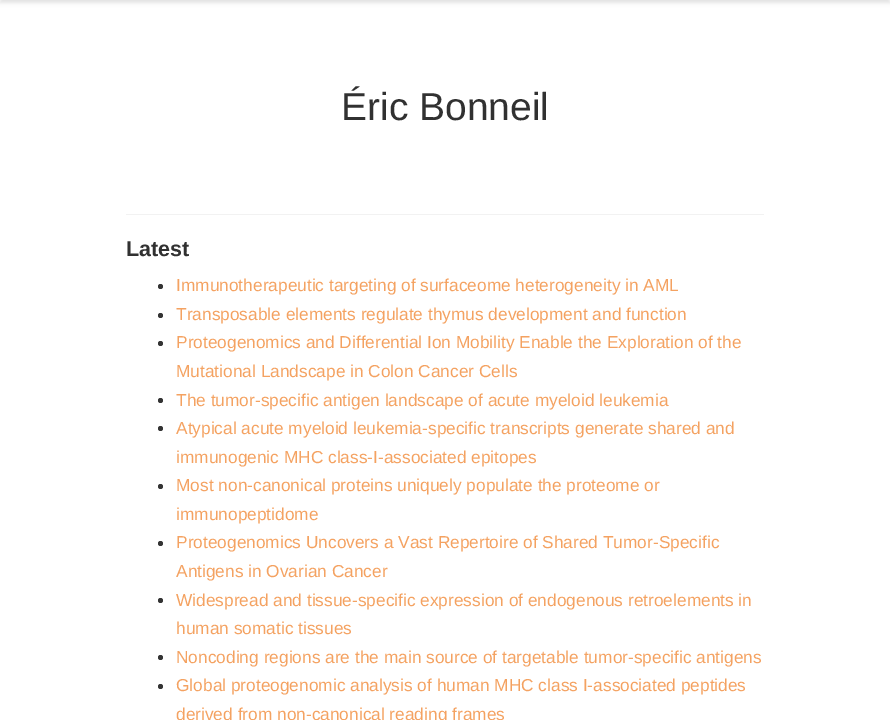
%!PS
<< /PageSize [890 720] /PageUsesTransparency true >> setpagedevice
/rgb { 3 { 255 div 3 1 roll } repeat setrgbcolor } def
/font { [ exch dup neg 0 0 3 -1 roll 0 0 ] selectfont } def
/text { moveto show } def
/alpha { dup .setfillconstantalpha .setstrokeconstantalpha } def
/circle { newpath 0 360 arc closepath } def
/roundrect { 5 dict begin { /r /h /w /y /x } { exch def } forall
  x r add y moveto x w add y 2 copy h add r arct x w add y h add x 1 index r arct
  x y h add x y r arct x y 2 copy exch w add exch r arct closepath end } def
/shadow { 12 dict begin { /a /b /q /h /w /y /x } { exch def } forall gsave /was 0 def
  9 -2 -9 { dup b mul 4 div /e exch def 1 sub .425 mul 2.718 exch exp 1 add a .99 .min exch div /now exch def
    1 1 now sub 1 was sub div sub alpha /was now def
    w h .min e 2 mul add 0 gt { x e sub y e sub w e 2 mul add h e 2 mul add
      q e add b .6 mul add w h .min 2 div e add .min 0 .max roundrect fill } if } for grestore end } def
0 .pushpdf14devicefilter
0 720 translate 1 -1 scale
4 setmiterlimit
255 255 255 rgb
0 0 890 720 rectfill
0 0 0 rgb
0 -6 890 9 0 2 0.11 shadow
242 242 242 rgb
126 214 638 1 rectfill
51 51 51 rgb
160.5 286.5 2.5 circle fill
160.5 315.5 2.5 circle fill
160.5 343.5 2.5 circle fill
160.5 400.5 2.5 circle fill
160.5 428.5 2.5 circle fill
160.5 486.5 2.5 circle fill
160.5 543.5 2.5 circle fill
160.5 600.5 2.5 circle fill
160.5 657.5 2.5 circle fill
160.5 686.5 2.5 circle fill
/LiberationSans-Regular 39 font
49 49 49 rgb
(Éric Bonneil) 341 120 text
/LiberationSans-Bold 21.5 font
(Latest) 126 256 text
/LiberationSans-Regular 17.3 font
244 162 97 rgb
(Immunotherapeutic targeting of surfaceome heterogeneity in AML) 176 291 text
(Transposable elements regulate thymus development and function) 176 320 text
(Proteogenomics and Differential Ion Mobility Enable the Exploration of the) 176 348 text
(Mutational Landscape in Colon Cancer Cells) 176 377 text
(The tumor-specific antigen landscape of acute myeloid leukemia) 176 406 text
(Atypical acute myeloid leukemia-specific transcripts generate shared and) 176 434 text
(immunogenic MHC class-I-associated epitopes) 176 463 text
(Most non-canonical proteins uniquely populate the proteome or) 176 491 text
(immunopeptidome) 176 520 text
(Proteogenomics Uncovers a Vast Repertoire of Shared Tumor-Specific) 176 548 text
(Antigens in Ovarian Cancer) 176 577 text
(Widespread and tissue-specific expression of endogenous retroelements in) 176 606 text
(human somatic tissues) 176 634 text
(Noncoding regions are the main source of targetable tumor-specific antigens) 176 663 text
(Global proteogenomic analysis of human MHC class I-associated peptides) 176 691 text
(derived from non-canonical reading frames) 176 720 text
.poppdf14devicefilter showpage
